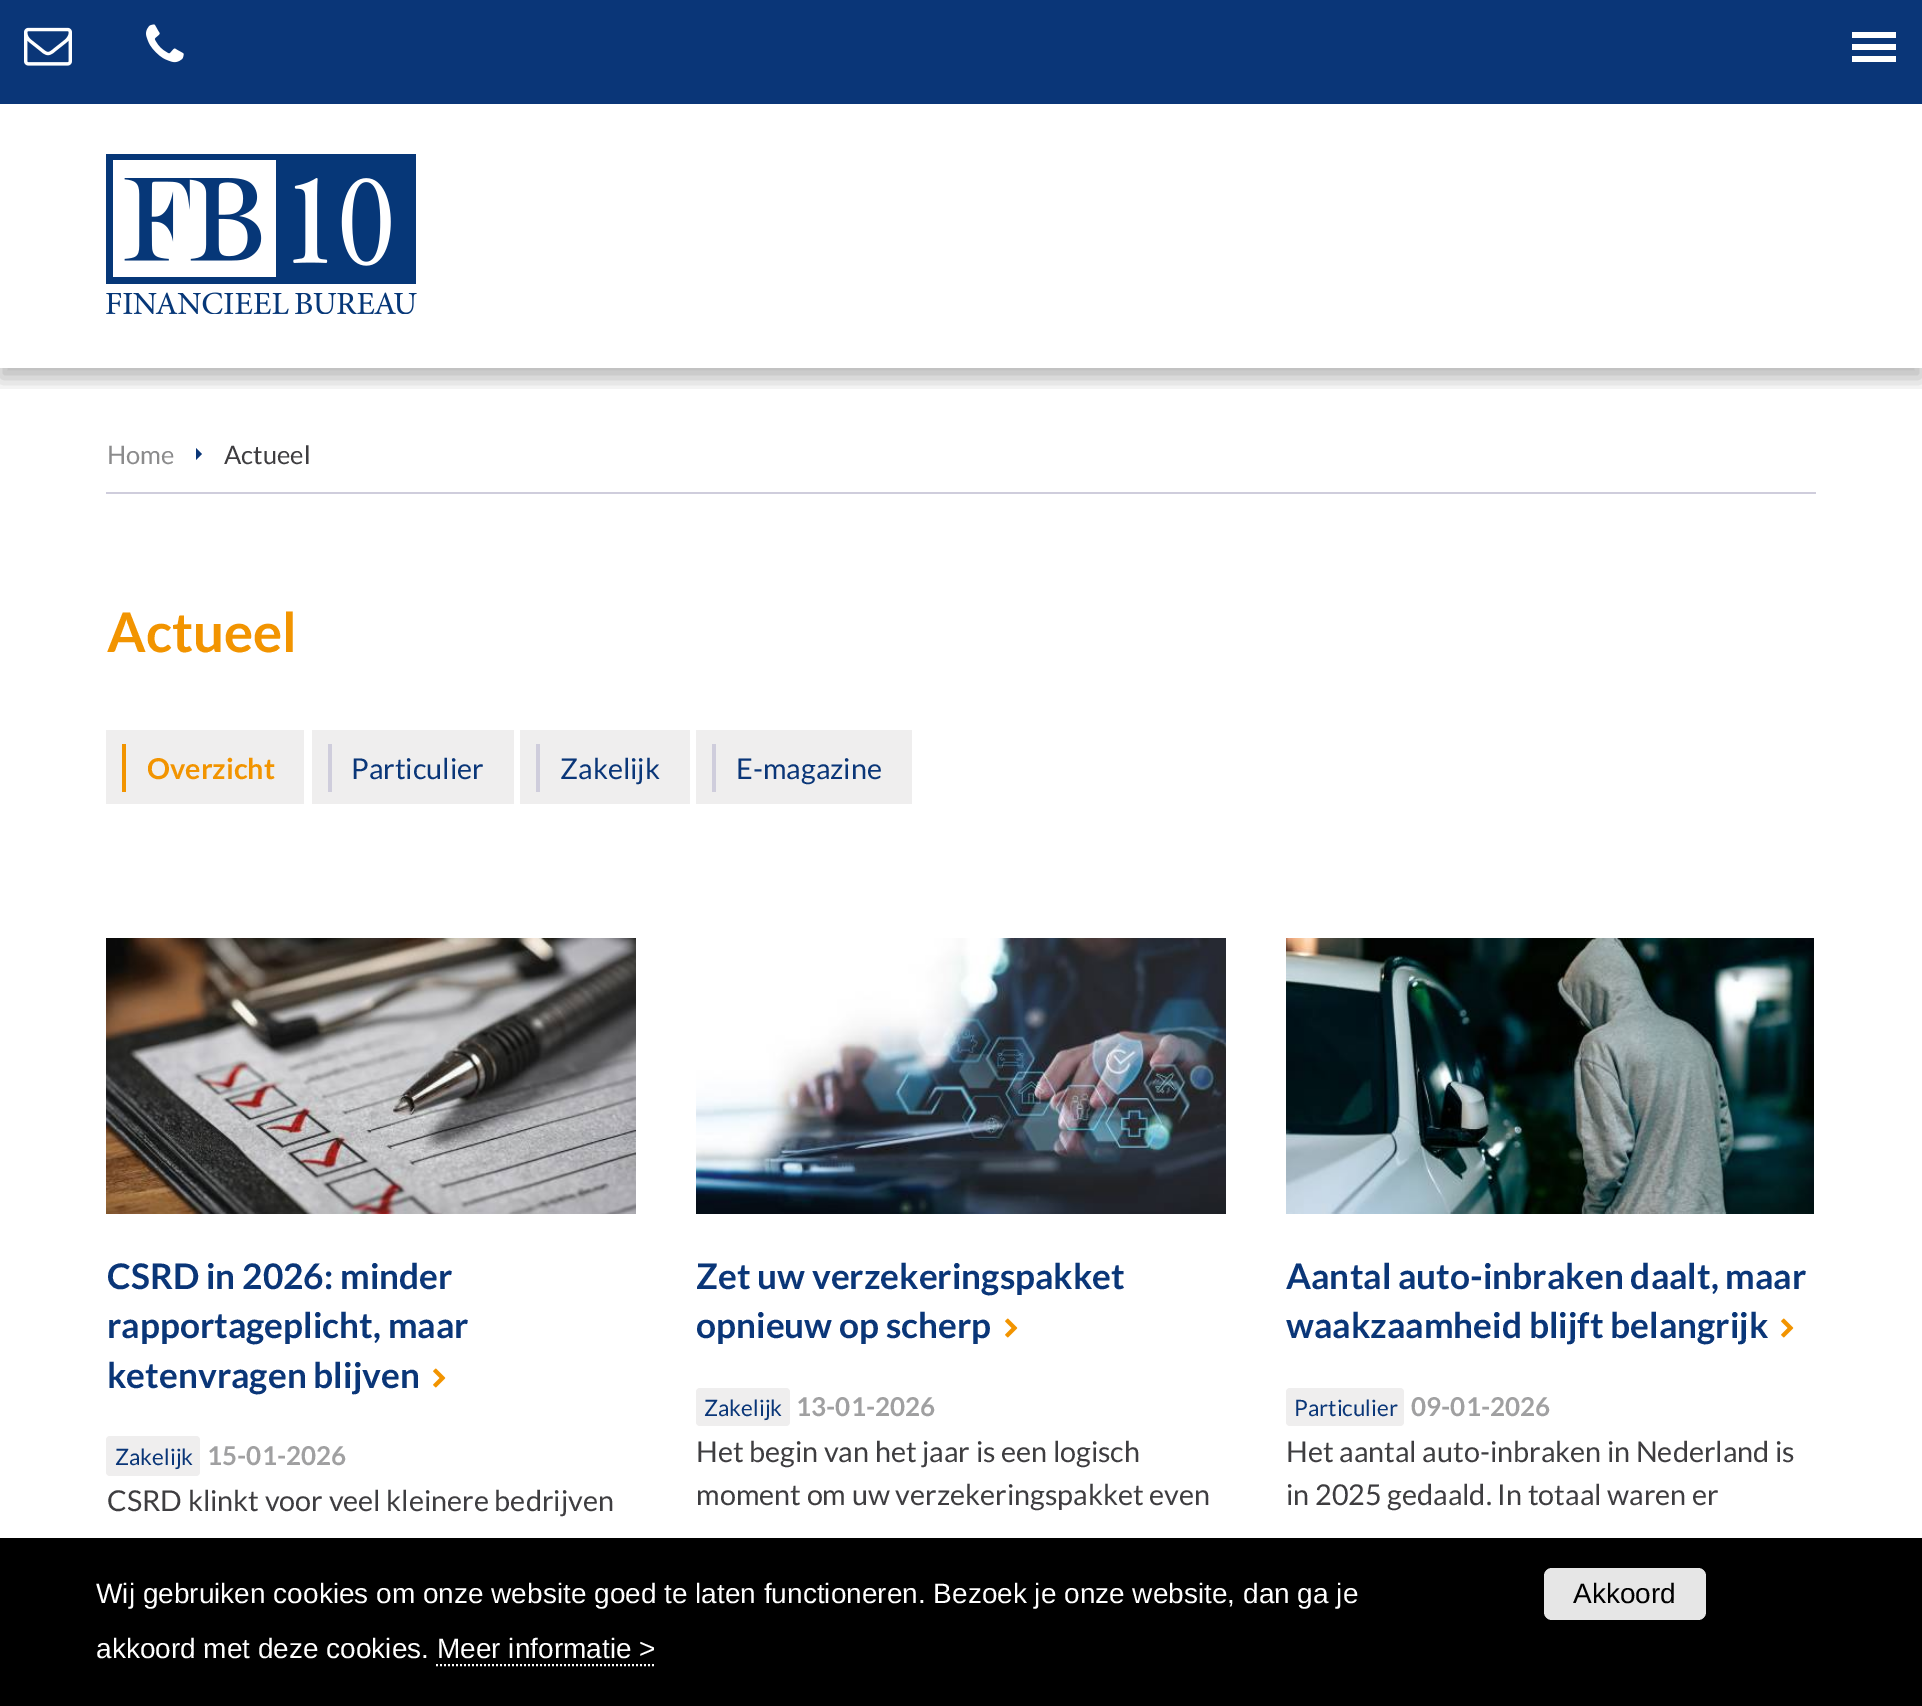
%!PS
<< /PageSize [1922 1706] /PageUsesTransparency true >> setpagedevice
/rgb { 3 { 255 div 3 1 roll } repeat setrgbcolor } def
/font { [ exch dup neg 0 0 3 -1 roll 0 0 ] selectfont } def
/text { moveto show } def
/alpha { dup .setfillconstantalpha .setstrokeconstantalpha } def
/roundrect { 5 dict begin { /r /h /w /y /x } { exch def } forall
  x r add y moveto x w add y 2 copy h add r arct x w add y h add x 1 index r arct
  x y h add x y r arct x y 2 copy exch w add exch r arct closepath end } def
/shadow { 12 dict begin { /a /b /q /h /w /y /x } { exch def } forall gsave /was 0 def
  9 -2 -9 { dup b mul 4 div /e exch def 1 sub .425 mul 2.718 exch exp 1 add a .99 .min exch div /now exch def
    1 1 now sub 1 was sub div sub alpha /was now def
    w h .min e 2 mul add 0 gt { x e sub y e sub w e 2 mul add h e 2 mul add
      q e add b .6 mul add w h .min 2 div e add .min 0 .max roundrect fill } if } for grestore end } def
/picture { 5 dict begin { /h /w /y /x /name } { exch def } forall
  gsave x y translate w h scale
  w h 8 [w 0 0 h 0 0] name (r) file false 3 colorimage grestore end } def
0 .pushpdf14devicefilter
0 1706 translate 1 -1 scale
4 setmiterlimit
255 255 255 rgb
0 0 1922 1706 rectfill
gsave
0 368 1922 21 rectclip
0 0 0 rgb
0 114 1922 264 0 10 0.15 shadow
0 114 1922 264 0 10 0.15 shadow
grestore
10 54 120 rgb
0 0 1922 104 rectfill
(img_01.rgb) 24 27 48 39 picture
(img_02.rgb) 146 24 38 39 picture
255 255 255 rgb
1852 32 44 6 rectfill
1852 44 44 6 rectfill
1852 56 44 6 rectfill
(img_03.rgb) 106 154 311 160 picture
207 205 220 rgb
106 492 1710 2 rectfill
10 54 120 rgb
196 460 moveto 0 -12 rlineto 6 6 rlineto closepath fill
239 238 238 rgb
106 730 198 74 rectfill
242 148 0 rgb
122 744 4 48 rectfill
239 238 238 rgb
312 730 202 74 rectfill
207 205 220 rgb
328 744 4 48 rectfill
239 238 238 rgb
520 730 170 74 rectfill
207 205 220 rgb
536 744 4 48 rectfill
239 238 238 rgb
696 730 216 74 rectfill
207 205 220 rgb
712 744 4 48 rectfill
(img_04.rgb) 106 938 530 276 picture
(img_05.rgb) 433 1368 13 20 picture
239 238 238 rgb
106 1436 94 40 4 roundrect fill
(img_06.rgb) 696 938 530 276 picture
(img_05.rgb) 1005 1318 13 20 picture
696 1388 94 38 4 roundrect fill
(img_07.rgb) 1286 938 528 276 picture
(img_05.rgb) 1781 1318 13 20 picture
1286 1388 118 38 4 roundrect fill
0 0 0 rgb
0 1538 1922 168 rectfill
255 255 255 rgb
2 setlinewidth
[2 2] 0 setdash
436 1665 moveto 220 0 rlineto stroke
230 230 230 rgb
1544 1568 162 52 8 roundrect fill
/Lato-Regular 25.5 font
139 139 140 rgb
(Home) 107 464 text
62 61 64 rgb
(Actueel) 224 464 text
/Lato-Bold 54.5 font
242 148 0 rgb
(Actueel) 107 652 text
/Lato-Bold 28.75 font
(Overzicht) 147 779 text
/Lato-Regular 28.75 font
10 54 120 rgb
(Particulier) 351 779 text
(Zakelijk) 560 779 text
(E-magazine) 736 779 text
/Lato-Bold 35.25 font
(CSRD in 2026: minder) 107 1289 text
(rapportageplicht, maar) 107 1338 text
(ketenvragen blijven) 107 1388 text
/Lato-Regular 22.5 font
(Zakelijk) 115 1465 text
/Lato-Bold 26 font
160 160 161 rgb
(15-01-2026) 207 1465 text
/Lato-Regular 28.75 font
62 61 64 rgb
(CSRD klinkt voor veel kleinere bedrijven) 107 1511 text
/Lato-Bold 35.25 font
10 54 120 rgb
(Zet uw verzekeringspakket) 696 1289 text
(opnieuw op scherp) 696 1338 text
/Lato-Regular 22.5 font
(Zakelijk) 704 1416 text
/Lato-Bold 26 font
160 160 161 rgb
(13-01-2026) 796 1416 text
/Lato-Regular 28.75 font
62 61 64 rgb
(Het begin van het jaar is een logisch) 696 1462 text
(moment om uw verzekeringspakket even) 696 1505 text
/Lato-Bold 35.25 font
10 54 120 rgb
(Aantal auto-inbraken daalt, maar) 1286 1289 text
(waakzaamheid blijft belangrijk) 1286 1338 text
/Lato-Regular 22.5 font
(Particulier) 1294 1416 text
/Lato-Bold 26 font
160 160 161 rgb
(09-01-2026) 1411 1416 text
/Lato-Regular 28.75 font
62 61 64 rgb
(Het aantal auto-inbraken in Nederland is) 1286 1462 text
(in 2025 gedaald. In totaal waren er) 1286 1505 text
/LiberationSans-Regular 28 font
255 255 255 rgb
(Wij gebruiken cookies om onze website goed te laten functioneren. Bezoek je onze website, dan ga je) 96 1603 text
(akkoord met deze cookies. Meer informatie >) 96 1658 text
0 0 0 rgb
(Akkoord) 1573 1603 text
.poppdf14devicefilter showpage
